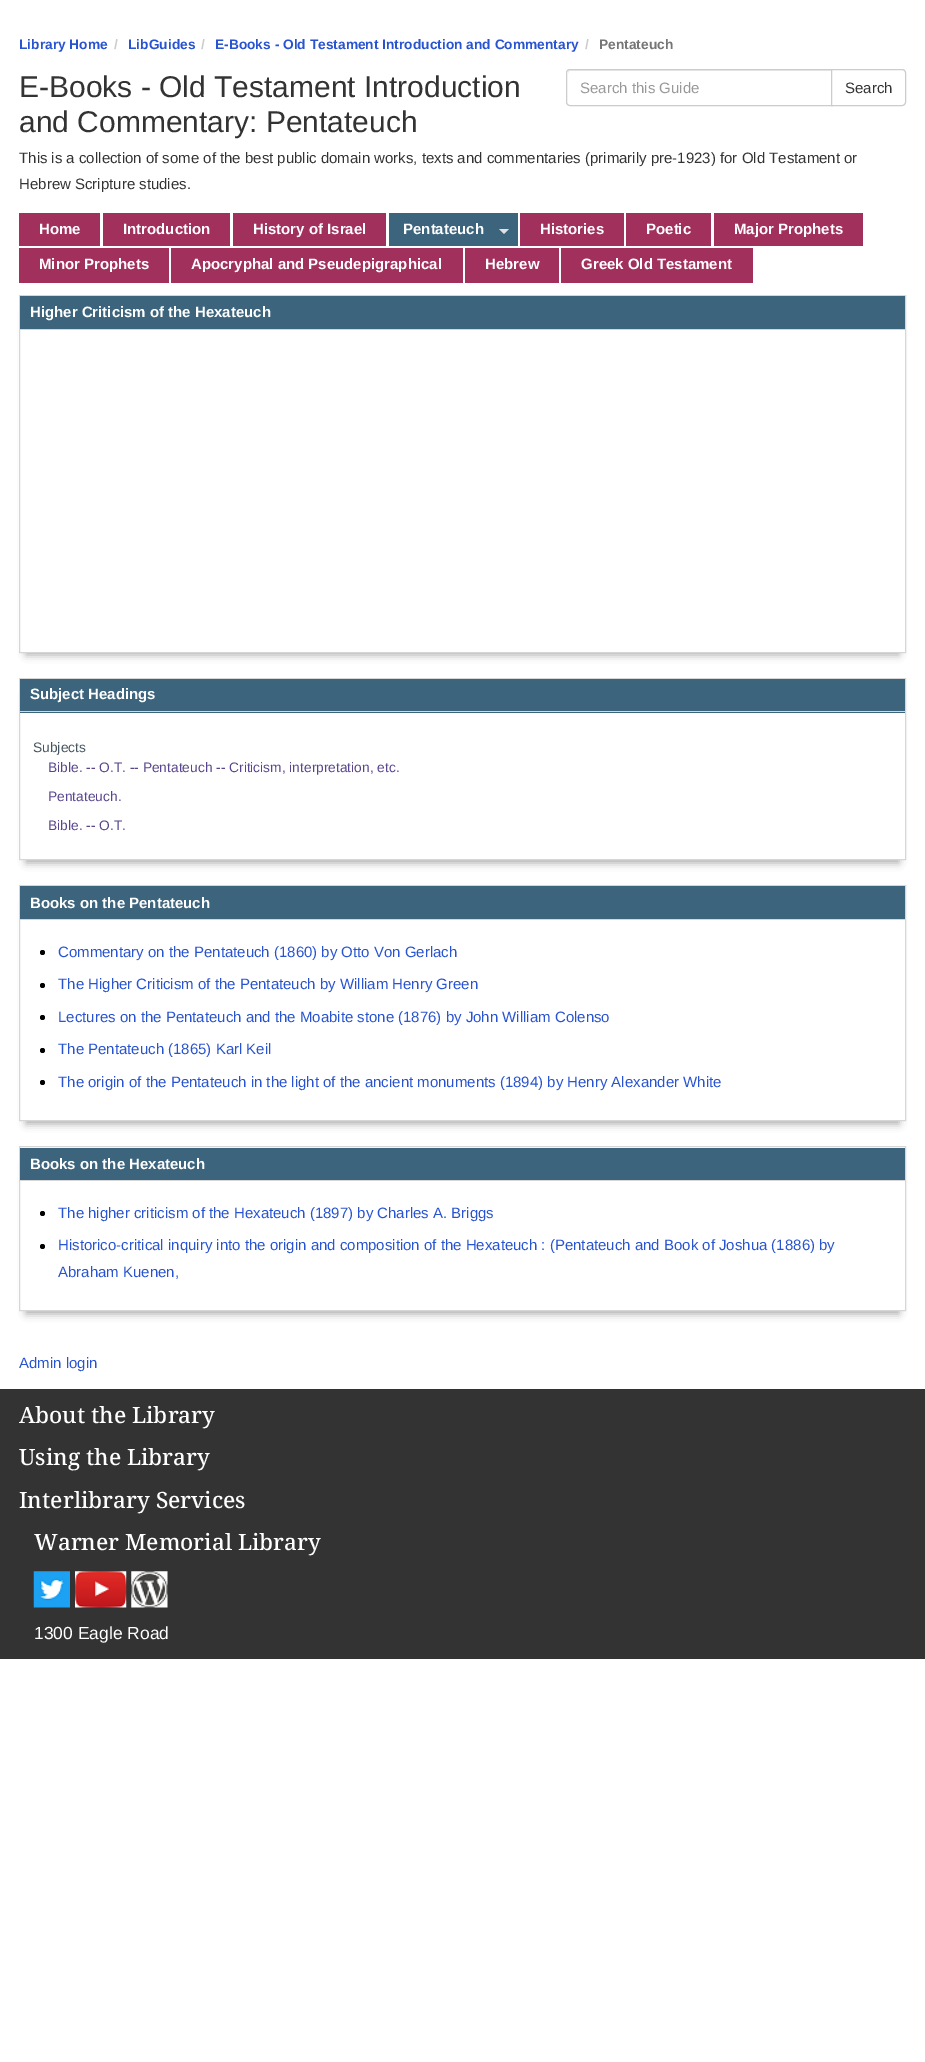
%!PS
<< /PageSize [925 2062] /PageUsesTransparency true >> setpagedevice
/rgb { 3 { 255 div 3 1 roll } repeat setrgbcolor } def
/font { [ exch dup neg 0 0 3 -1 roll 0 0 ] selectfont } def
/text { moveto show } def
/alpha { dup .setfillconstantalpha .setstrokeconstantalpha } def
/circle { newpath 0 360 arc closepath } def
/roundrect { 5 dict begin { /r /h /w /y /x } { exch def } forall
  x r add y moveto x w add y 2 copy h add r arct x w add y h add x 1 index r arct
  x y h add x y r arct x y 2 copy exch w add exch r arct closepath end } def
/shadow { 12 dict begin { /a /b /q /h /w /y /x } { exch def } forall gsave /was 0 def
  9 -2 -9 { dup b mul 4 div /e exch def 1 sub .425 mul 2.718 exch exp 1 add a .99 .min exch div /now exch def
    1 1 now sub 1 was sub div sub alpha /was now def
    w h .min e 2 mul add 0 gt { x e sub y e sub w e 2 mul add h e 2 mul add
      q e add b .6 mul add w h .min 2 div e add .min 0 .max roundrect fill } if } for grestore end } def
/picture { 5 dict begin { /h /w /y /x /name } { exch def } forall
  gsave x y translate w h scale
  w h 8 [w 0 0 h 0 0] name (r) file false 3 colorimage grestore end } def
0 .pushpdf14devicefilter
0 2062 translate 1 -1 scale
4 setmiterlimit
255 255 255 rgb
0 0 925 2062 rectfill
236 236 236 rgb
570 71 moveto 261 0 rlineto 0 -1 rlineto -261 0 rlineto -1 0 -2 1 -2 2 rcurveto 0 2 rlineto 0 -2 1 -3 2 -3 rcurveto closepath fill
204 204 204 rgb
570 69.5 moveto 262.5 0 rlineto 0 36 rlineto -262.5 0 rlineto -2 0 -3.5 -1.5 -3.5 -3.5 rcurveto 0 -29 rlineto 0 -2 1.5 -3.5 3.5 -3.5 rcurveto closepath stroke
255 255 255 rgb
831.5 69.5 moveto 70.5 0 rlineto 2 0 3.5 1.5 3.5 3.5 rcurveto 0 29 rlineto 0 2 -1.5 3.5 -3.5 3.5 rcurveto -70.5 0 rlineto closepath gsave fill grestore
204 204 204 rgb
stroke
161 48 92 rgb
19 213 81 33 rectfill
103 213 127 33 rectfill
233 213 153 33 rectfill
60 100 125 rgb
389 213 129 33 rectfill
225 225 225 rgb
499 229 moveto 10 0 rlineto -5 5 rlineto closepath fill
161 48 92 rgb
520 213 104 33 rectfill
626 213 85 33 rectfill
714 213 149 33 rectfill
19 248 150 35 rectfill
171 248 292 35 rectfill
465 248 94 35 rectfill
561 248 192 35 rectfill
170 170 170 rgb
26 313 873 342 0 4 1 shadow
255 255 255 rgb
20 330 885 322 rectfill
214 214 214 rgb
19.5 295.5 886 357 rectstroke
60 100 125 rgb
20 296 885 33 rectfill
214 214 214 rgb
20 329 885 1 rectfill
gsave
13 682 moveto 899 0 rlineto 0 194 rlineto -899 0 rlineto closepath 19 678 moveto 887 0 rlineto 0 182 rlineto -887 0 rlineto closepath eoclip newpath
170 170 170 rgb
26 695 873 168 0 4 1 shadow
grestore
19.5 678.5 886 181 rectstroke
60 100 125 rgb
20 679 885 34 rectfill
214 214 214 rgb
20 711 885 1 rectfill
gsave
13 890 moveto 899 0 rlineto 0 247 rlineto -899 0 rlineto closepath 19 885 moveto 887 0 rlineto 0 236 rlineto -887 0 rlineto closepath eoclip newpath
170 170 170 rgb
26 903 873 221 0 4 1 shadow
grestore
19.5 885.5 886 235 rectstroke
60 100 125 rgb
20 886 885 33 rectfill
214 214 214 rgb
20 919 885 1 rectfill
0 0 0 rgb
42.5 952.5 2.5 circle fill
42.5 985.5 2.5 circle fill
42.5 1017.5 2.5 circle fill
42.5 1050.5 2.5 circle fill
42.5 1082.5 2.5 circle fill
gsave
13 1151 moveto 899 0 rlineto 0 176 rlineto -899 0 rlineto closepath 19 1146 moveto 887 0 rlineto 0 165 rlineto -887 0 rlineto closepath eoclip newpath
170 170 170 rgb
26 1164 873 150 0 4 1 shadow
grestore
214 214 214 rgb
19.5 1146.5 886 164 rectstroke
60 100 125 rgb
20 1148 885 32 rectfill
214 214 214 rgb
20 1180 885 1 rectfill
0 0 0 rgb
42.5 1213.5 2.5 circle fill
42.5 1246.5 2.5 circle fill
51 51 51 rgb
0 1389 925 270 rectfill
(img_01.rgb) 33 1571 37 37 picture
(img_02.rgb) 75 1571 52 37 picture
(img_03.rgb) 131 1571 37 37 picture
/LiberationSans-Bold 13.75 font
41 84 209 rgb
(Library Home) 19 49 text
204 204 204 rgb
(/) 114 49 text
41 84 209 rgb
(LibGuides) 128 49 text
204 204 204 rgb
(/) 201 49 text
41 84 209 rgb
(E-Books - Old Testament Introduction and Commentary) 215 49 text
204 204 204 rgb
(/) 585 49 text
118 118 118 rgb
(Pentateuch) 599 49 text
/LiberationSans-Regular 30 font
51 51 51 rgb
(E-Books - Old Testament Introduction) 19 97 text
(and Commentary: Pentateuch) 19 132 text
/LiberationSans-Regular 15 font
(This is a collection of some of the best public domain works, texts and commentaries \(primarily pre-1923\) for Old Testament or) 19 163 text
(Hebrew Scripture studies.) 19 189 text
153 153 153 rgb
(Search this Guide) 580 93 text
51 51 51 rgb
(Search) 845 93 text
/LiberationSans-Bold 15 font
255 255 255 rgb
(Home) 39 234 text
(Introduction) 123 234 text
(History of Israel) 253 234 text
(Pentateuch) 403 234 text
(Histories) 540 234 text
(Poetic) 646 234 text
(Major Prophets) 734 234 text
(Minor Prophets) 39 269 text
(Apocryphal and Pseudepigraphical) 191 269 text
(Hebrew) 485 269 text
(Greek Old Testament) 581 269 text
(Higher Criticism of the Hexateuch) 30 317 text
(Subject Headings) 30 699 text
/LiberationSans-Regular 13.75 font
69 85 96 rgb
(Subjects) 33 752 text
90 69 141 rgb
(Bible. -- O.T. -- Pentateuch -- Criticism, interpretation, etc.) 48 772 text
(Pentateuch.) 48 801 text
(Bible. -- O.T.) 48 830 text
/LiberationSans-Bold 15 font
255 255 255 rgb
(Books on the Pentateuch) 30 908 text
/LiberationSans-Regular 15 font
41 84 209 rgb
(Commentary on the Pentateuch \(1860\) by Otto Von Gerlach) 58 957 text
(The Higher Criticism of the Pentateuch by William Henry Green) 58 989 text
(Lectures on the Pentateuch and the Moabite stone \(1876\) by John William Colenso) 58 1022 text
(The Pentateuch \(1865\) Karl Keil) 58 1054 text
(The origin of the Pentateuch in the light of the ancient monuments \(1894\) by Henry Alexander White) 58 1087 text
/LiberationSans-Bold 15 font
255 255 255 rgb
(Books on the Hexateuch) 30 1169 text
/LiberationSans-Regular 15 font
41 84 209 rgb
(The higher criticism of the Hexateuch \(1897\) by Charles A. Briggs) 58 1218 text
(Historico-critical inquiry into the origin and composition of the Hexateuch : \(Pentateuch and Book of Joshua \(1886\) by) 58 1250 text
(Abraham Kuenen,) 58 1277 text
(Admin login) 19 1368 text
/NotoSerif-Medium 22.5 font
255 255 255 rgb
(About the Library) 19 1423 text
(Using the Library) 19 1465 text
(Interlibrary Services) 19 1508 text
(Warner Memorial Library) 34 1550 text
/LiberationSans-Regular 17.5 font
(1300 Eagle Road) 34 1639 text
.poppdf14devicefilter showpage
